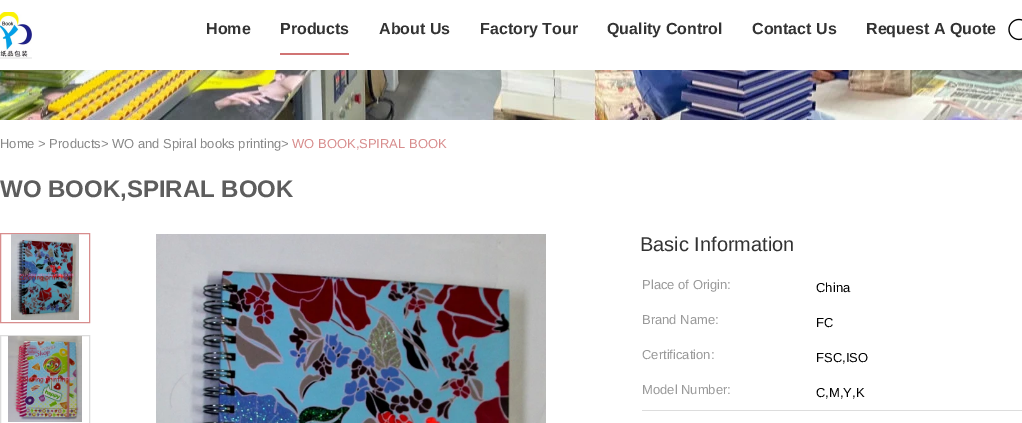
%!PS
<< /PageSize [1022 423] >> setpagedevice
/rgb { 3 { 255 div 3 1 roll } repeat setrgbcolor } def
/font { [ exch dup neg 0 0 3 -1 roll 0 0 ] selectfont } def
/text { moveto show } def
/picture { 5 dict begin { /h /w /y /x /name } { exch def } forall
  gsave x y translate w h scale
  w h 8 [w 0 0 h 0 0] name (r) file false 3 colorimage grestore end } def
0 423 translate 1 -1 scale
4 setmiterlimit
255 255 255 rgb
0 0 1022 423 rectfill
(img_01.rgb) 0 12 32 47 picture
209 116 116 rgb
280 53 69 2 rectfill
(img_02.rgb) 1008 18 14 23 picture
(img_03.rgb) 0 70 1022 50 picture
216 141 141 rgb
0.5 233.5 89 89 rectstroke
(img_04.rgb) 11 234 68 86 picture
221 221 221 rgb
0.5 335.5 89 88 rectstroke
(img_05.rgb) 8 336 74 86 picture
(img_06.rgb) 156 234 390 189 picture
642 410 380 1 rectfill
/LiberationSans-Bold 16 font
51 51 51 rgb
(Home) 206 34 text
(Products) 280 34 text
(About Us) 379 34 text
(Factory Tour) 480 34 text
(Quality Control) 607 34 text
(Contact Us) 752 34 text
(Request A Quote) 866 34 text
/LiberationSans-Regular 13 font
136 136 136 rgb
(Home > Products> WO and Spiral books printing>) 0 148 text
216 141 141 rgb
(WO BOOK,SPIRAL BOOK) 292 148 text
/LiberationSans-Bold 24 font
93 93 93 rgb
(WO BOOK,SPIRAL BOOK) 0 197 text
/LiberationSans-Regular 20 font
51 51 51 rgb
(Basic Information) 640 251 text
/LiberationSans-Regular 13 font
153 153 153 rgb
(Place of Origin:) 642 289 text
0 0 0 rgb
(China) 816 292 text
153 153 153 rgb
(Brand Name:) 642 324 text
0 0 0 rgb
(FC) 816 327 text
153 153 153 rgb
(Certification:) 642 359 text
0 0 0 rgb
(FSC,ISO) 816 362 text
153 153 153 rgb
(Model Number:) 642 394 text
0 0 0 rgb
(C,M,Y,K) 816 397 text
showpage
